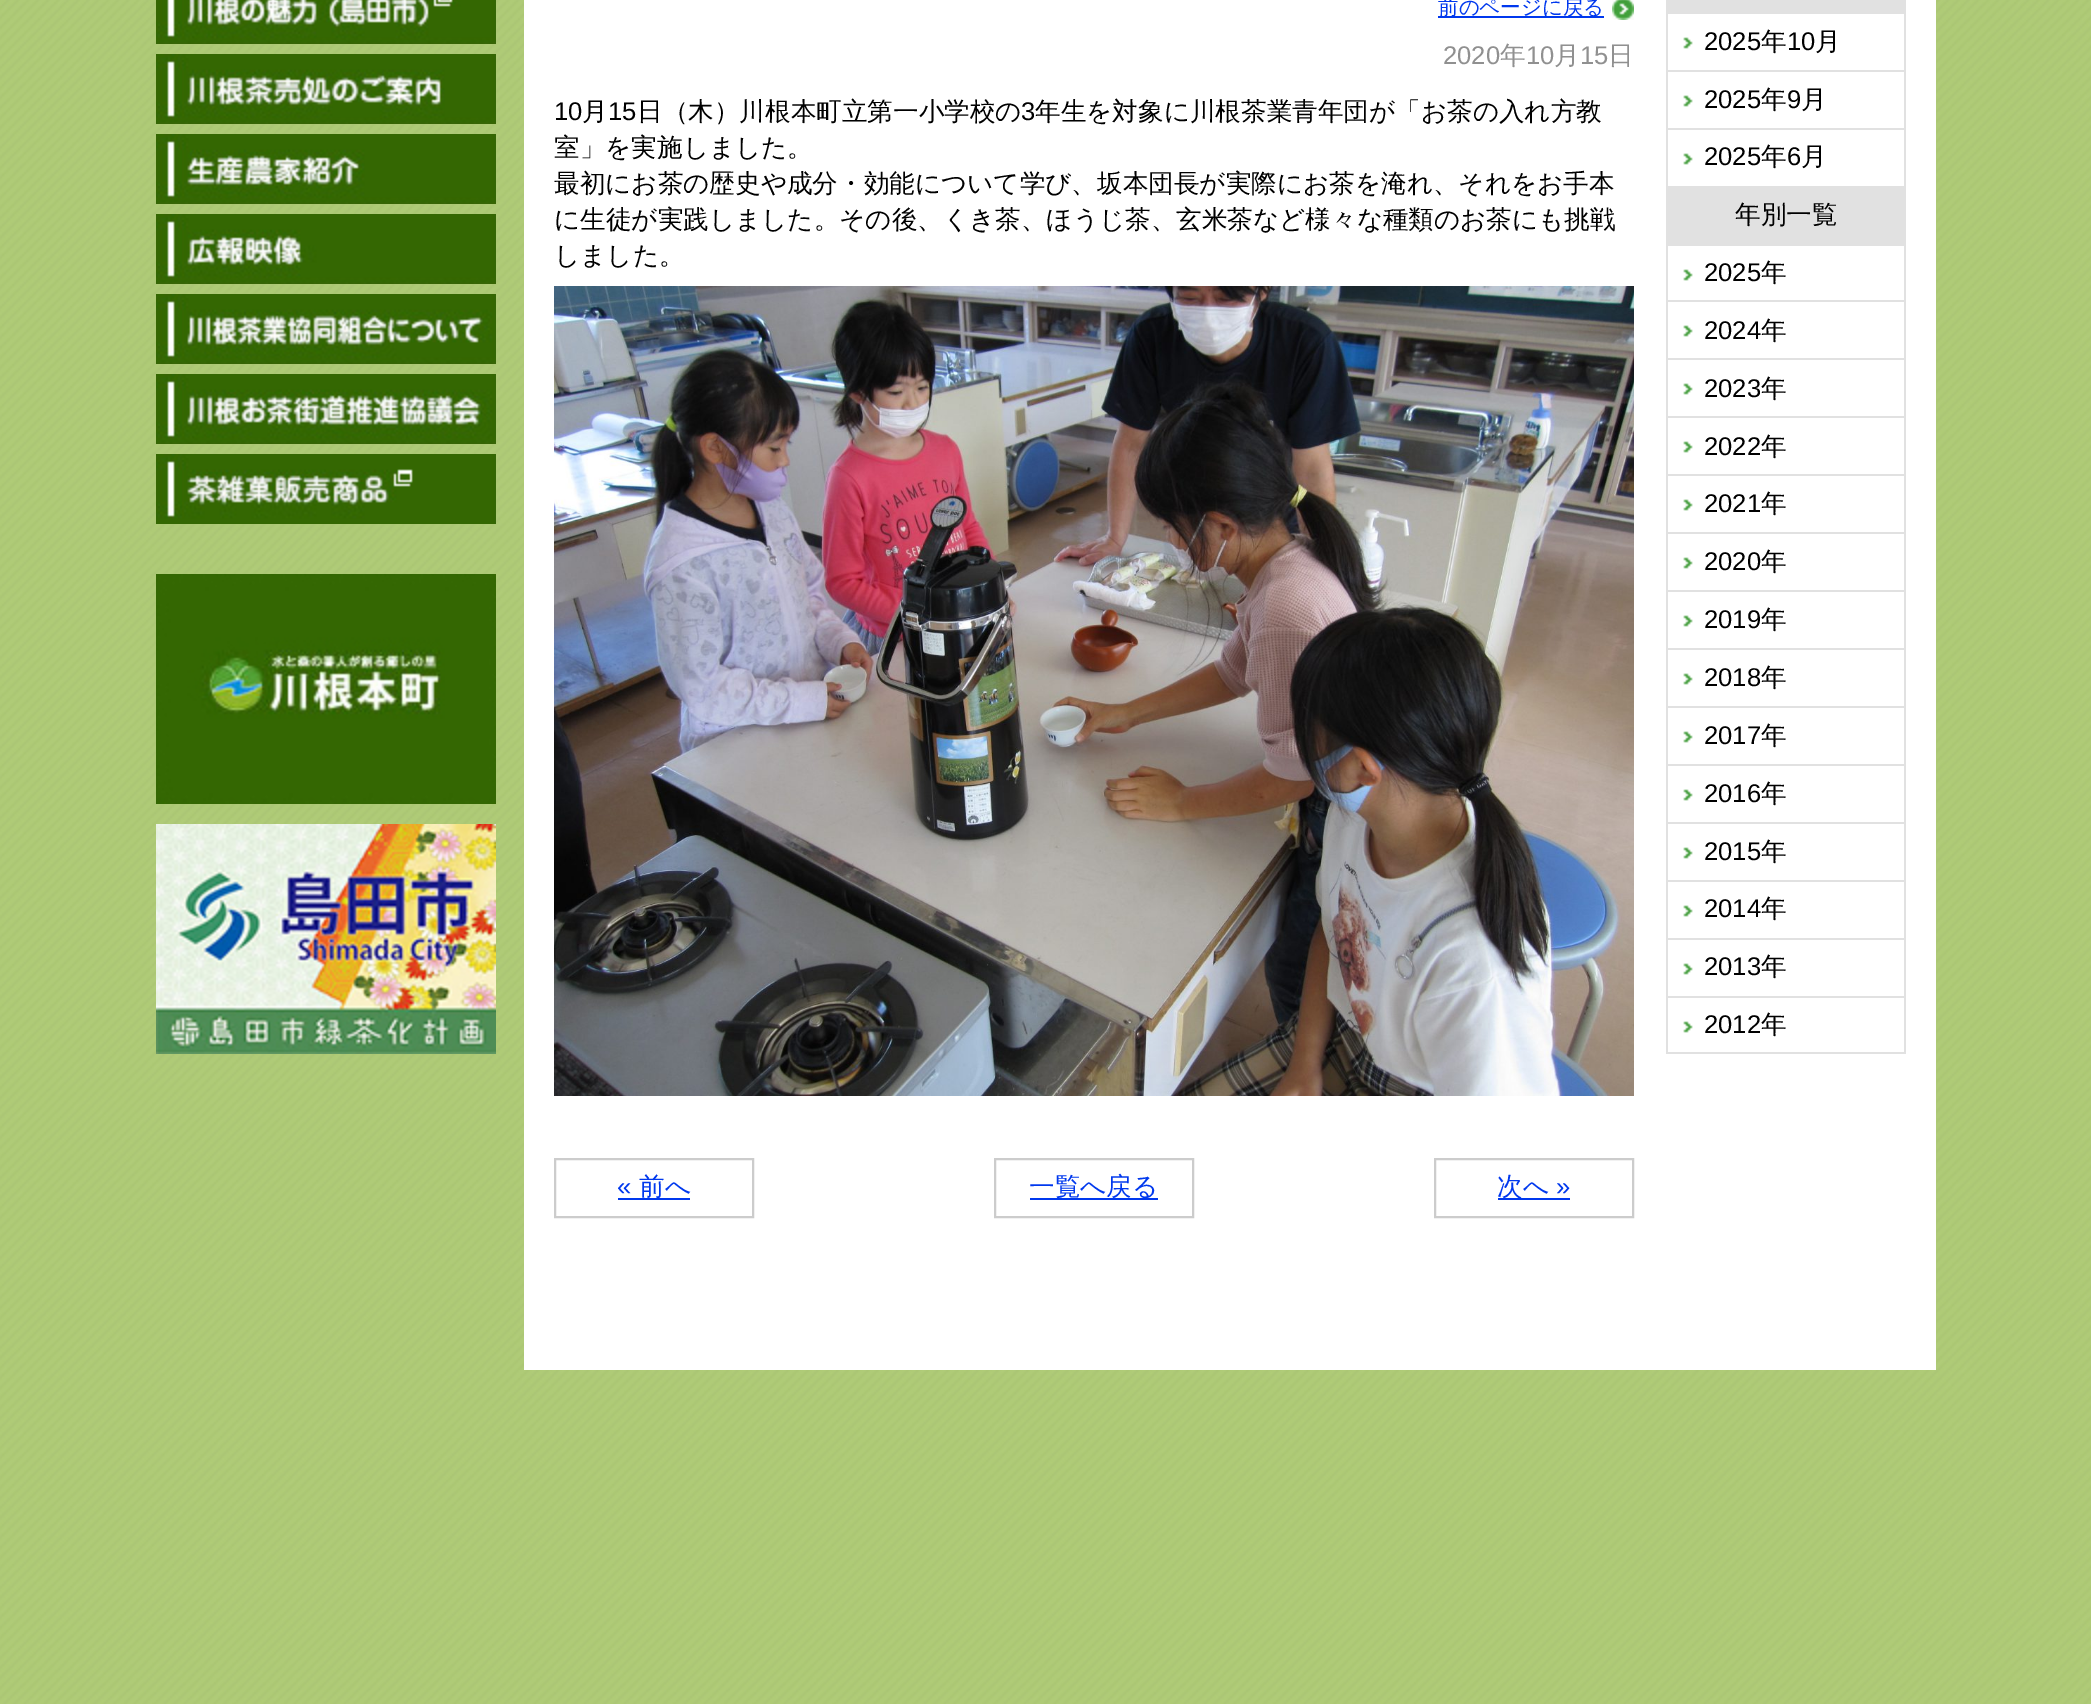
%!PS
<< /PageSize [2091 1704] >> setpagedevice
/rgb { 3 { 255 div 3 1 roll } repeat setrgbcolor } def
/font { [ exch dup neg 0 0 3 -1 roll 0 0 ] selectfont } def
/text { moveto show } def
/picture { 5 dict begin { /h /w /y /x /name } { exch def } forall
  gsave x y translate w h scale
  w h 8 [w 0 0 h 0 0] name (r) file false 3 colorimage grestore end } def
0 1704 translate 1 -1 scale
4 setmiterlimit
255 255 255 rgb
0 0 2091 1704 rectfill
(img_01.rgb) 0 0 2091 1704 picture
(img_02.rgb) 156 0 340 44 picture
(img_03.rgb) 156 54 340 70 picture
(img_04.rgb) 156 134 340 70 picture
(img_05.rgb) 156 214 340 70 picture
(img_06.rgb) 156 294 340 70 picture
(img_07.rgb) 156 374 340 70 picture
(img_08.rgb) 156 454 340 70 picture
(img_09.rgb) 156 574 340 230 picture
(img_10.rgb) 156 824 340 230 picture
524 0 1412 1370 rectfill
0 56 238 rgb
1438 16 166 2 rectfill
(img_11.rgb) 1612 0 22 20 picture
(img_12.rgb) 554 286 1080 810 picture
204 204 204 rgb
2 setlinewidth
555 1159 198 58 rectstroke
0 56 238 rgb
618 1198 72 2 rectfill
204 204 204 rgb
995 1159 198 58 rectstroke
0 56 238 rgb
1030 1198 128 2 rectfill
204 204 204 rgb
1435 1159 198 58 rectstroke
0 56 238 rgb
1498 1198 72 2 rectfill
225 225 225 rgb
1666 0 240 14 rectfill
1904 12 2 176 rectfill
1666 12 2 176 rectfill
1668 70 236 2 rectfill
(img_13.rgb) 1683 37 10 12 picture
1668 128 236 2 rectfill
(img_13.rgb) 1683 95 10 12 picture
1668 186 236 2 rectfill
(img_13.rgb) 1683 153 10 12 picture
1666 188 240 58 rectfill
1904 244 2 810 rectfill
1666 244 2 810 rectfill
1668 300 236 2 rectfill
(img_13.rgb) 1683 269 10 12 picture
1668 358 236 2 rectfill
(img_13.rgb) 1683 325 10 12 picture
1668 416 236 2 rectfill
(img_13.rgb) 1683 383 10 12 picture
1668 474 236 2 rectfill
(img_13.rgb) 1683 441 10 12 picture
1668 532 236 2 rectfill
(img_13.rgb) 1683 499 10 12 picture
1668 590 236 2 rectfill
(img_13.rgb) 1683 557 10 12 picture
1668 648 236 2 rectfill
(img_13.rgb) 1683 615 10 12 picture
1668 706 236 2 rectfill
(img_13.rgb) 1683 673 10 12 picture
1668 764 236 2 rectfill
(img_13.rgb) 1683 731 10 12 picture
1668 822 236 2 rectfill
(img_13.rgb) 1683 789 10 12 picture
1668 880 236 2 rectfill
(img_13.rgb) 1683 847 10 12 picture
1668 938 236 2 rectfill
(img_13.rgb) 1683 905 10 12 picture
1668 996 236 2 rectfill
(img_13.rgb) 1683 963 10 12 picture
1668 1052 236 2 rectfill
(img_13.rgb) 1683 1021 10 12 picture
/WenQuanYiZenHei-Medium 20.5 font
0 56 238 rgb
(前のページに戻る) 1438 14 text
/LiberationSans-Regular 25.6 font
144 144 144 rgb
(2020) 1443 64 text
/WenQuanYiZenHei-Medium 25.6 font
(年) 1500 64 text
/LiberationSans-Regular 25.6 font
(10) 1526 64 text
/WenQuanYiZenHei-Medium 25.6 font
(月) 1554 64 text
/LiberationSans-Regular 25.6 font
(15) 1580 64 text
/WenQuanYiZenHei-Medium 25.6 font
(日) 1608 64 text
/LiberationSans-Regular 25.6 font
0 0 0 rgb
(10) 554 120 text
/WenQuanYiZenHei-Medium 25.6 font
(月) 582 120 text
/LiberationSans-Regular 25.6 font
(15) 608 120 text
/WenQuanYiZenHei-Medium 25.6 font
(日（木）川根本町立第一小学校の) 637 120 text
/LiberationSans-Regular 25.6 font
(3) 1021 120 text
/WenQuanYiZenHei-Medium 25.6 font
(年生を対象に川根茶業青年団が「お茶の入れ方教) 1035 120 text
(室」を実施しました。) 554 156 text
(最初にお茶の歴史や成分・効能について学び、坂本団長が実際にお茶を淹れ、それをお手本) 554 192 text
(に生徒が実践しました。その後、くき茶、ほうじ茶、玄米茶など様々な種類のお茶にも挑戦) 554 228 text
(しました。) 554 264 text
/LiberationSans-Regular 25.6 font
0 56 238 rgb
(«) 617 1195 text
/WenQuanYiZenHei-Medium 25.6 font
(前へ) 639 1195 text
(一覧へ戻る) 1029 1195 text
(次へ) 1497 1195 text
/LiberationSans-Regular 25.6 font
(») 1556 1195 text
0 0 0 rgb
(2025) 1704 50 text
/WenQuanYiZenHei-Medium 25.6 font
(年) 1761 50 text
/LiberationSans-Regular 25.6 font
(10) 1787 50 text
/WenQuanYiZenHei-Medium 25.6 font
(月) 1815 50 text
/LiberationSans-Regular 25.6 font
(2025) 1704 108 text
/WenQuanYiZenHei-Medium 25.6 font
(年) 1761 108 text
/LiberationSans-Regular 25.6 font
(9) 1787 108 text
/WenQuanYiZenHei-Medium 25.6 font
(月) 1801 108 text
/LiberationSans-Regular 25.6 font
(2025) 1704 165 text
/WenQuanYiZenHei-Medium 25.6 font
(年) 1761 165 text
/LiberationSans-Regular 25.6 font
(6) 1787 165 text
/WenQuanYiZenHei-Medium 25.6 font
(月) 1801 165 text
(年別一覧) 1735 223 text
/LiberationSans-Regular 25.6 font
(2025) 1704 281 text
/WenQuanYiZenHei-Medium 25.6 font
(年) 1761 281 text
/LiberationSans-Regular 25.6 font
(2024) 1704 339 text
/WenQuanYiZenHei-Medium 25.6 font
(年) 1761 339 text
/LiberationSans-Regular 25.6 font
(2023) 1704 397 text
/WenQuanYiZenHei-Medium 25.6 font
(年) 1761 397 text
/LiberationSans-Regular 25.6 font
(2022) 1704 455 text
/WenQuanYiZenHei-Medium 25.6 font
(年) 1761 455 text
/LiberationSans-Regular 25.6 font
(2021) 1704 512 text
/WenQuanYiZenHei-Medium 25.6 font
(年) 1761 512 text
/LiberationSans-Regular 25.6 font
(2020) 1704 570 text
/WenQuanYiZenHei-Medium 25.6 font
(年) 1761 570 text
/LiberationSans-Regular 25.6 font
(2019) 1704 628 text
/WenQuanYiZenHei-Medium 25.6 font
(年) 1761 628 text
/LiberationSans-Regular 25.6 font
(2018) 1704 686 text
/WenQuanYiZenHei-Medium 25.6 font
(年) 1761 686 text
/LiberationSans-Regular 25.6 font
(2017) 1704 744 text
/WenQuanYiZenHei-Medium 25.6 font
(年) 1761 744 text
/LiberationSans-Regular 25.6 font
(2016) 1704 802 text
/WenQuanYiZenHei-Medium 25.6 font
(年) 1761 802 text
/LiberationSans-Regular 25.6 font
(2015) 1704 860 text
/WenQuanYiZenHei-Medium 25.6 font
(年) 1761 860 text
/LiberationSans-Regular 25.6 font
(2014) 1704 917 text
/WenQuanYiZenHei-Medium 25.6 font
(年) 1761 917 text
/LiberationSans-Regular 25.6 font
(2013) 1704 975 text
/WenQuanYiZenHei-Medium 25.6 font
(年) 1761 975 text
/LiberationSans-Regular 25.6 font
(2012) 1704 1033 text
/WenQuanYiZenHei-Medium 25.6 font
(年) 1761 1033 text
showpage
